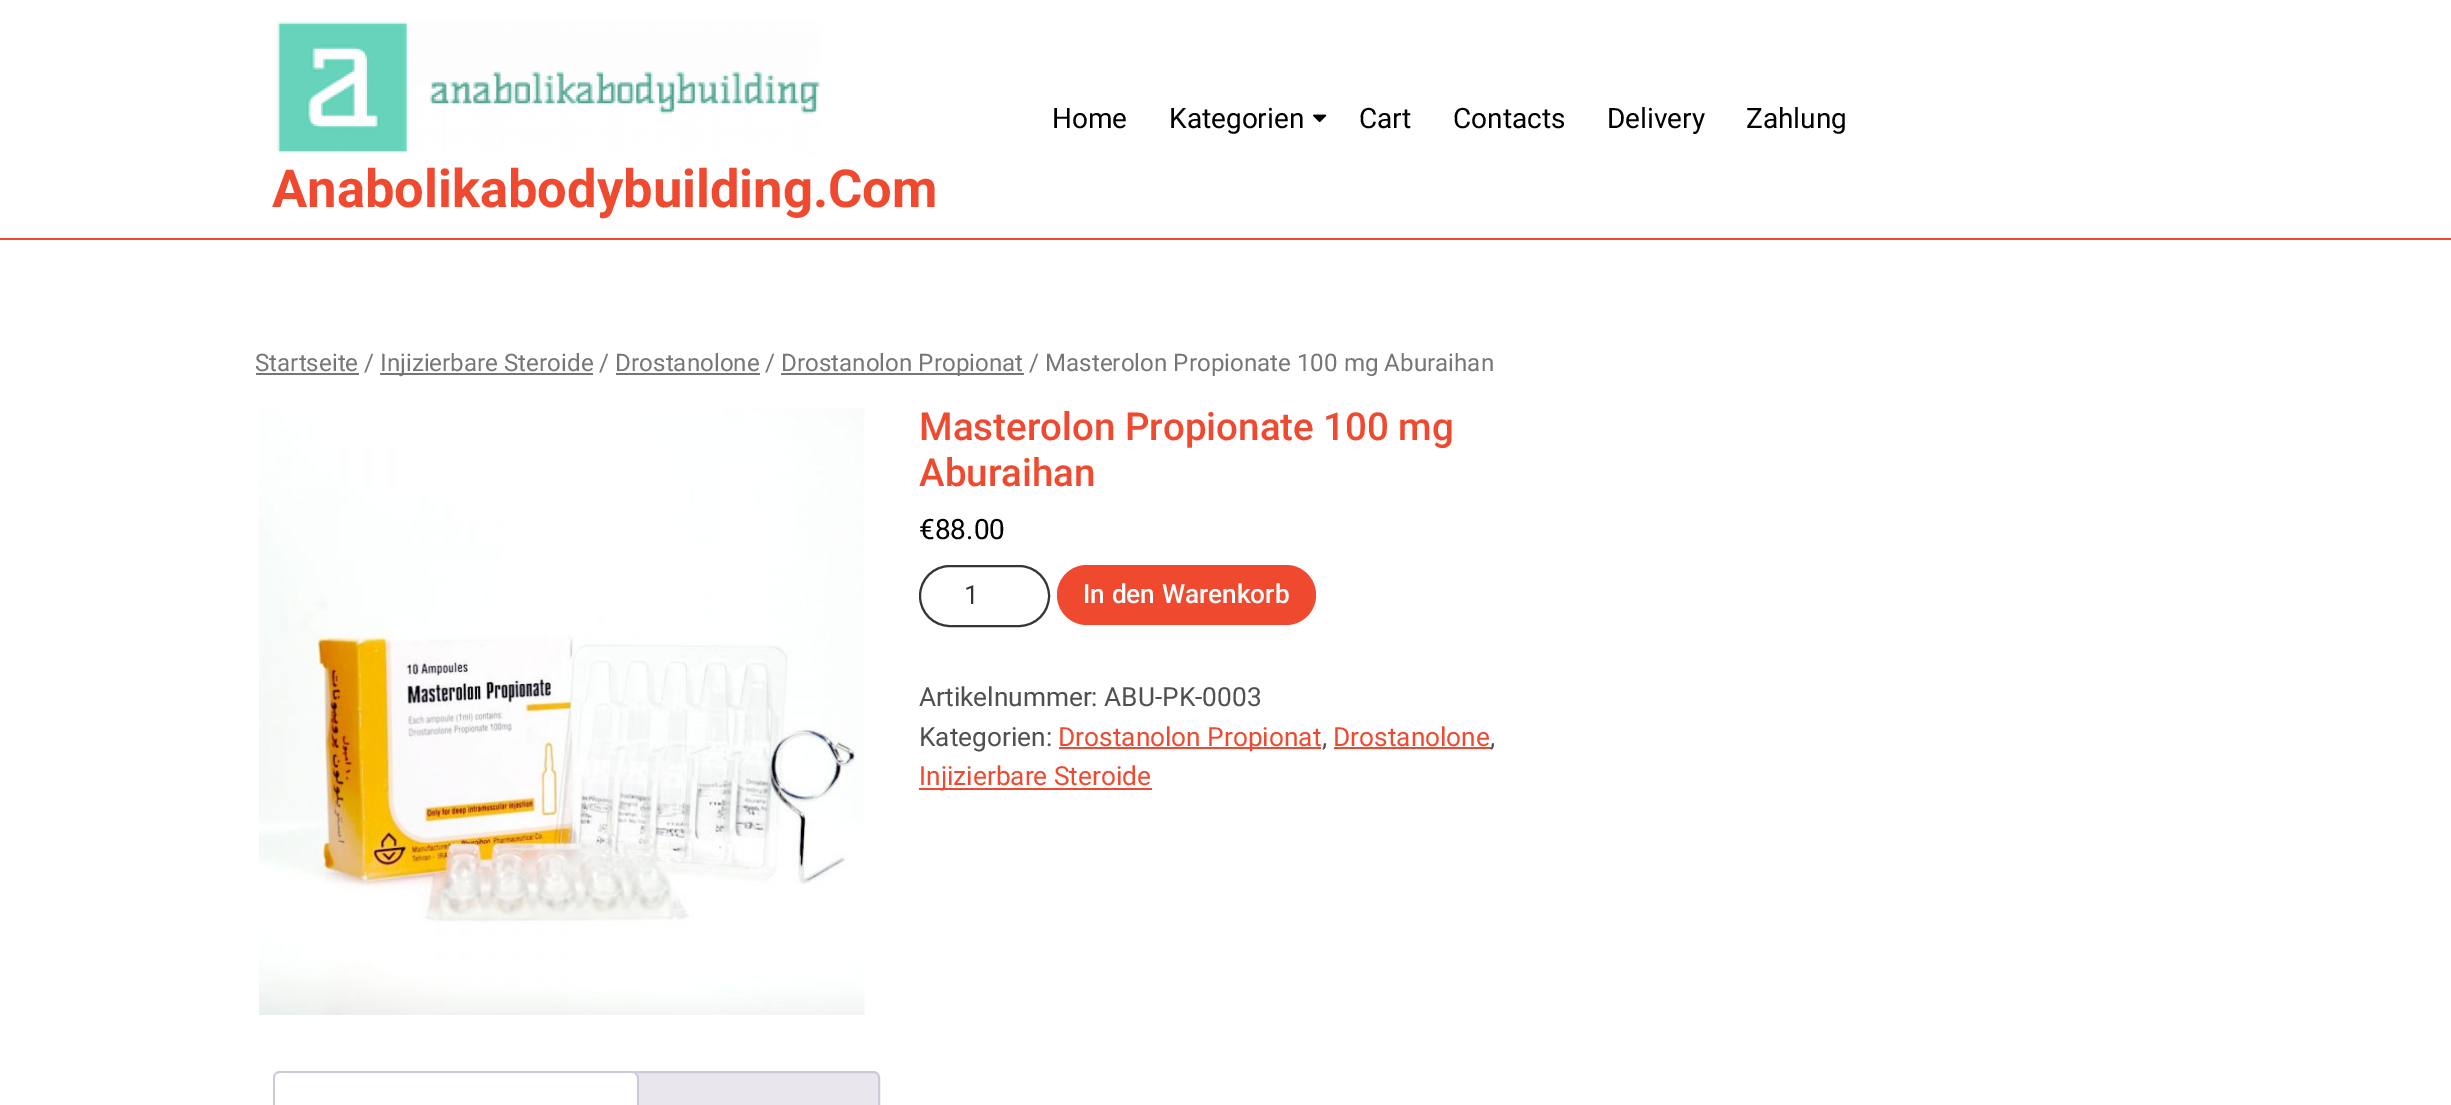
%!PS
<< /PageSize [2451 1105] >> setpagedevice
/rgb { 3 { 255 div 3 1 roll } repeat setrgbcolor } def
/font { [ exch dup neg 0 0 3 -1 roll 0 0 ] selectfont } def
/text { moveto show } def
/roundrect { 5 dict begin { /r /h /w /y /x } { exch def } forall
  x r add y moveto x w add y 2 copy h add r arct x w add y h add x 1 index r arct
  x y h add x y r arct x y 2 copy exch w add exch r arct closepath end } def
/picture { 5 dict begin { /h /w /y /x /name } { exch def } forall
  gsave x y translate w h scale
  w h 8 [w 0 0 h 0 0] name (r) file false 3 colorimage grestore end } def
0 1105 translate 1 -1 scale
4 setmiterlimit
255 255 255 rgb
0 0 2451 1105 rectfill
239 74 47 rgb
0 238 2451 2 rectfill
(img_01.rgb) 1313 114 14 9 picture
(img_02.rgb) 276 21 545 133 picture
118 118 118 rgb
256 373 103 2 rectfill
380 373 213 2 rectfill
781 373 243 2 rectfill
616 373 144 2 rectfill
(img_03.rgb) 259 408 606 607 picture
53 53 53 rgb
2 setlinewidth
920 566 129 60 30 roundrect stroke
239 74 47 rgb
1057 565 259 60 30 roundrect fill
1059 747 262 2 rectfill
1334 747 157 2 rectfill
919 788 233 2 rectfill
233 230 237 rgb
635 1072 moveto 238 0 rlineto 3.5 0 6 2.5 6 6 rcurveto 0 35 rlineto -250 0 rlineto 0 -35 rlineto 0 -3.5 2.5 -6 6 -6 rcurveto closepath gsave fill grestore
207 200 216 rgb
stroke
255 255 255 rgb
280 1071 moveto 352 0 rlineto 4 0 7 3 7 7 rcurveto 0 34 rlineto -366 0 rlineto 0 -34 rlineto 0 -4 3 -7 7 -7 rcurveto closepath fill
207 200 216 rgb
280 1071 moveto -2 0 -4 1 -5 2 rcurveto 1 1 rlineto 1 0 2 -1 4 -1 rcurveto 352 0 rlineto 1 0 3 0 3 1 rcurveto 2 -1 rlineto -1 -1 -3 -2 -5 -2 rcurveto closepath fill
639 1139 moveto -2 -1 rlineto 0 -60 rlineto 0 -2 -1 -3 -2 -4 rcurveto 2 -1 rlineto 2 3 rlineto closepath fill
273 1078 moveto 0 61 rlineto 2 -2 rlineto 0 -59 rlineto 0 -2 1 -3 1 -4 rcurveto -1 -1 rlineto -1 1 -2 3 -2 5 rcurveto closepath fill
/Roboto-Regular 28 font
0 0 0 rgb
(Home) 1052 128 text
(Kategorien) 1169 128 text
(Cart) 1359 128 text
(Contacts) 1453 128 text
(Delivery) 1607 128 text
(Zahlung) 1746 128 text
/Roboto-Bold 52.5 font
239 74 47 rgb
(Anabolikabodybuilding.Com) 272 207 text
/Roboto-Regular 24.15 font
118 118 118 rgb
(Startseite /) 255 371 text
(Injizierbare Steroide / Drostanolone /) 380 371 text
(Drostanolon Propionat / Masterolon Propionate 100 mg Aburaihan) 781 371 text
/Roboto-Medium 38.5 font
239 74 47 rgb
(Masterolon Propionate 100 mg) 919 440 text
(Aburaihan) 919 486 text
/Roboto-Regular 28 font
0 0 0 rgb
(€88.00) 919 539 text
/Roboto-Regular 26.25 font
53 53 53 rgb
(1) 964 604 text
/Roboto-Medium 26.25 font
255 255 255 rgb
(In den Warenkorb) 1083 603 text
/Roboto-Regular 26.25 font
80 80 80 rgb
(Artikelnummer: ABU-PK-0003) 919 706 text
(Kategorien:) 919 746 text
239 74 47 rgb
(Drostanolon Propionat) 1058 746 text
80 80 80 rgb
(,) 1322 746 text
239 74 47 rgb
(Drostanolone) 1333 746 text
80 80 80 rgb
(,) 1490 746 text
239 74 47 rgb
(Injizierbare Steroide) 919 785 text
showpage
